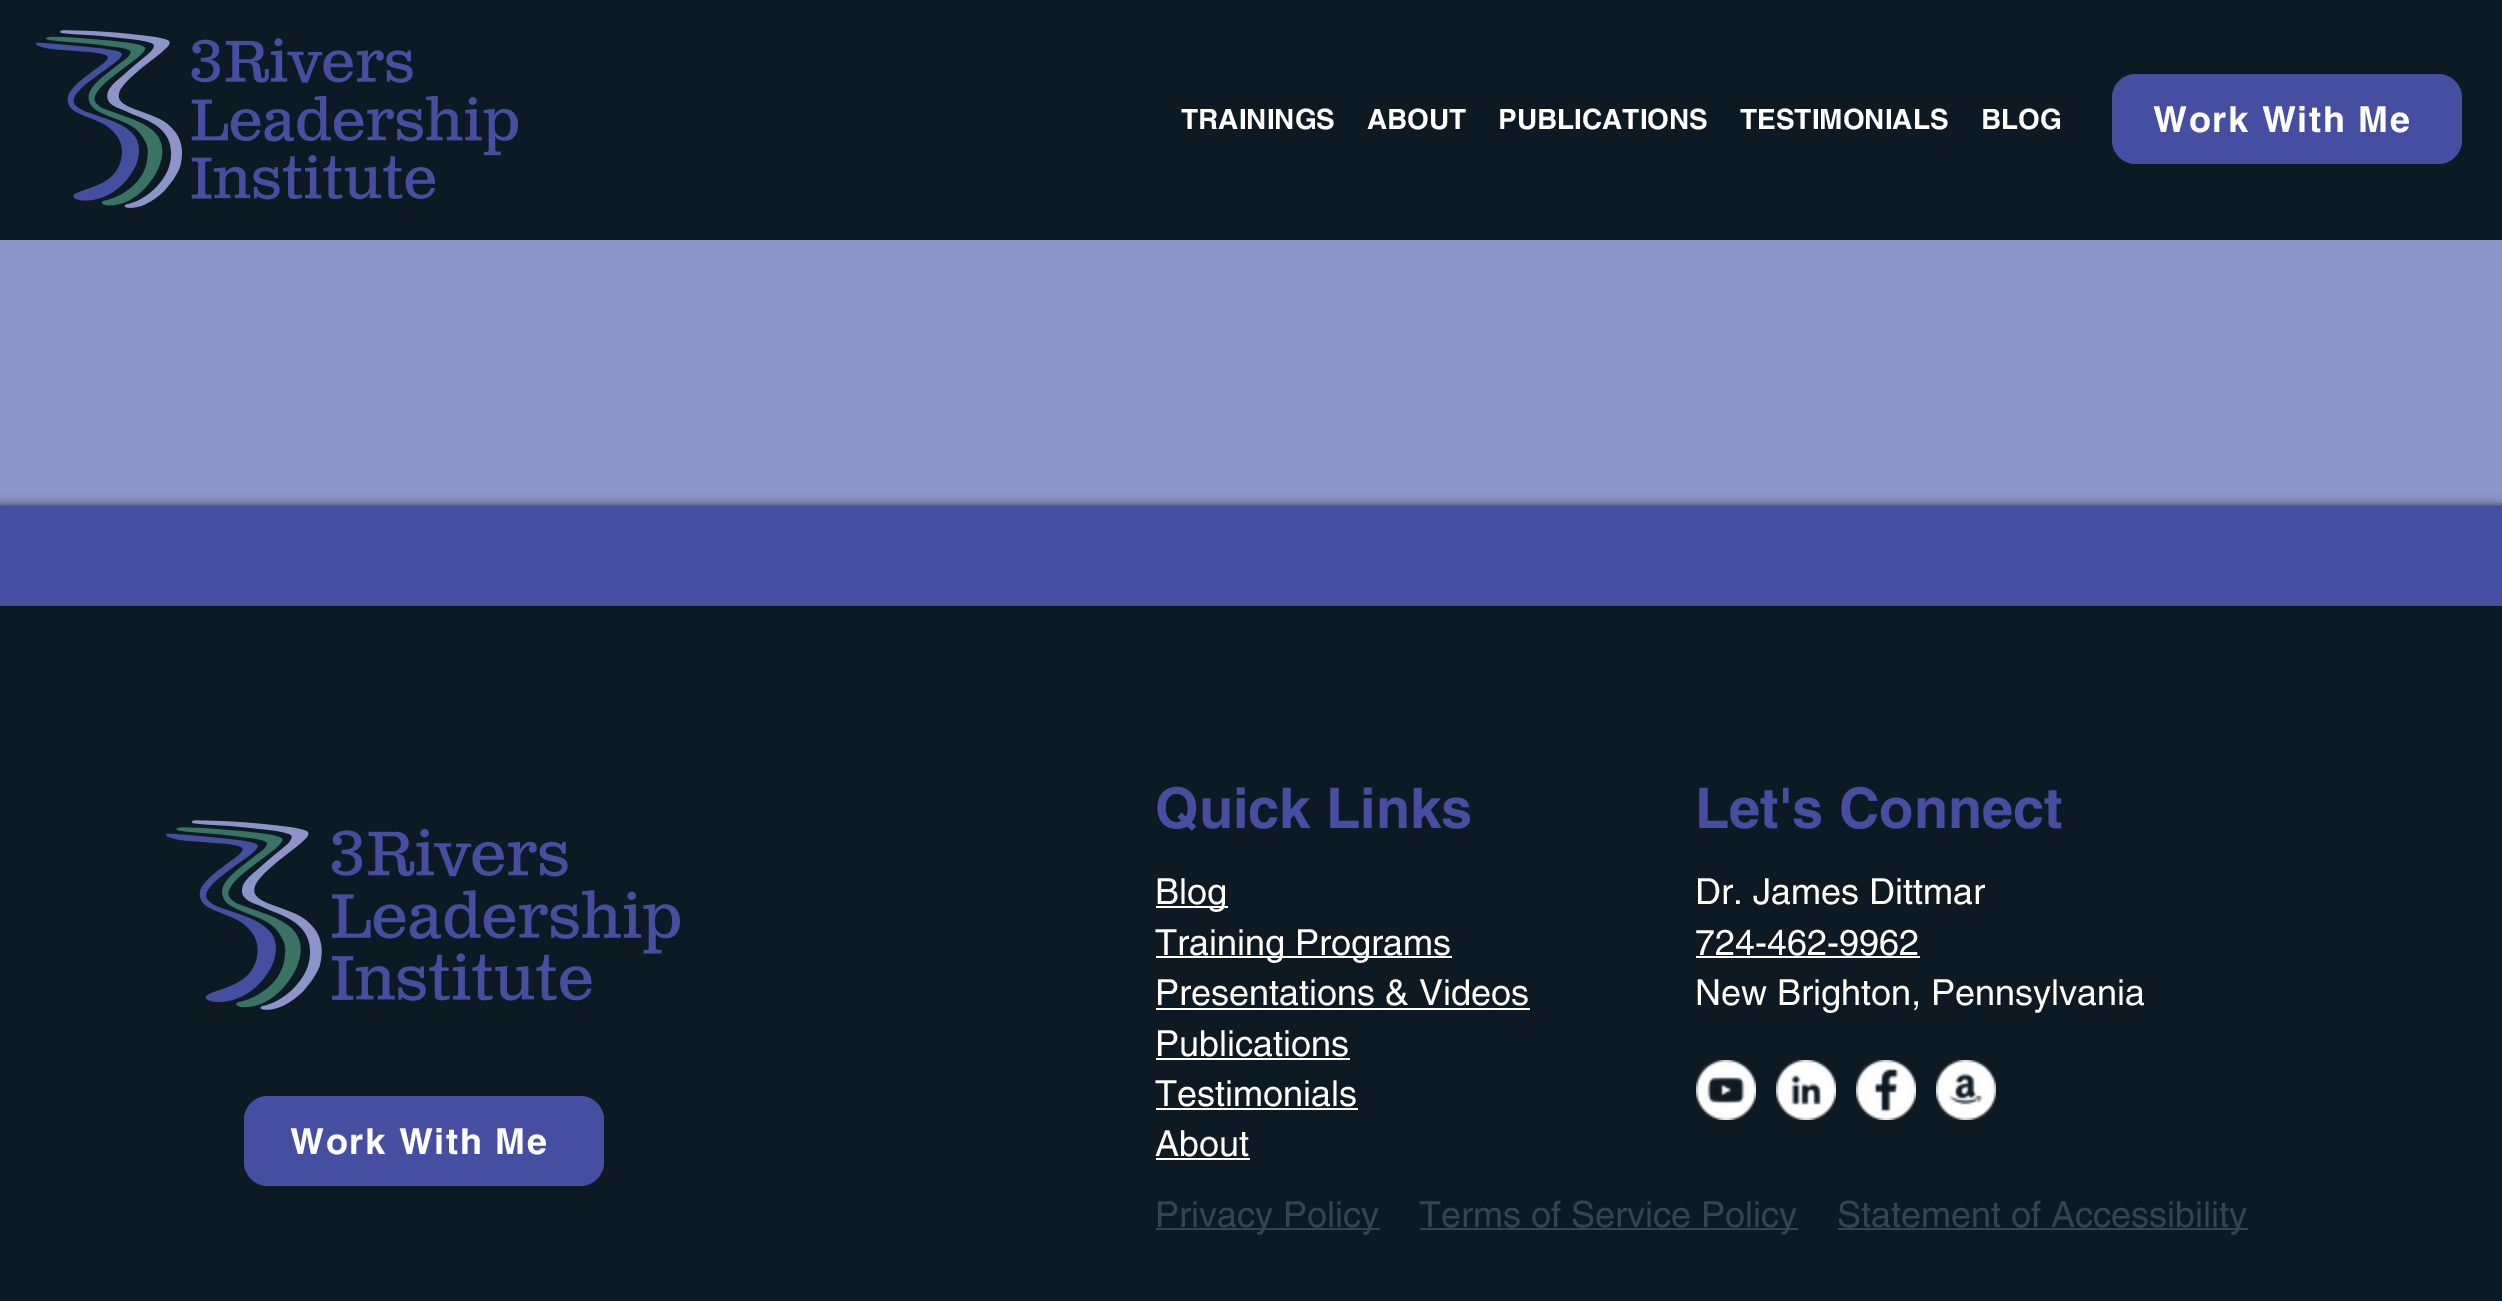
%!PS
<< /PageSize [2502 1301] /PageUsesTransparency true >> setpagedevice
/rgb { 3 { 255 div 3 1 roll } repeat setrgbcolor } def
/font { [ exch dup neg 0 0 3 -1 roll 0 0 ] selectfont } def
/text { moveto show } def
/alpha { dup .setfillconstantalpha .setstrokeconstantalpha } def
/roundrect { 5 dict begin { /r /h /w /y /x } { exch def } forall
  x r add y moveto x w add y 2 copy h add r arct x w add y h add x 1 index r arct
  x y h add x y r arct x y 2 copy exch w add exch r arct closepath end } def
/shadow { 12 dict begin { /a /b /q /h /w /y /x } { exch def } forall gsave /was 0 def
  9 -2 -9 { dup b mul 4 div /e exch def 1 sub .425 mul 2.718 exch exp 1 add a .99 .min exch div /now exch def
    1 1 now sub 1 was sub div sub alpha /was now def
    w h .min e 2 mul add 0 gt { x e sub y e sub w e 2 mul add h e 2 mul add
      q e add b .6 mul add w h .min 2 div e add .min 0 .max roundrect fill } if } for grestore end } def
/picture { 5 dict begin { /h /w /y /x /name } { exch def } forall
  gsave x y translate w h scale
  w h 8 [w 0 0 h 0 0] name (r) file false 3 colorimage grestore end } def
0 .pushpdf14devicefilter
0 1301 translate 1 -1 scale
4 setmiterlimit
143 148 201 rgb
0 0 2502 1301 rectfill
13 25 35 rgb
0 0 2502 240 rectfill
(img_01.rgb) 36 30 482 178 picture
70 78 161 rgb
2112 74 350 90 24 roundrect fill
0 0 0 rgb
0 506 2502 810 0 5 0.7 shadow
13 25 35 rgb
0 606 2502 695 rectfill
70 78 161 rgb
0 506 2502 100 rectfill
(img_02.rgb) 166 820 514 190 picture
244 1096 360 90 24 roundrect fill
255 255 255 rgb
1156 906 72 2 rectfill
1156 956 296 2 rectfill
1156 1008 374 2 rectfill
1156 1058 194 2 rectfill
1156 1108 202 2 rectfill
1156 1158 94 2 rectfill
1696 956 224 2 rectfill
(img_03.rgb) 1696 1060 60 60 picture
(img_04.rgb) 1776 1060 60 60 picture
(img_05.rgb) 1856 1060 60 60 picture
(img_06.rgb) 1936 1060 60 60 picture
54 68 79 rgb
1156 1228 224 2 rectfill
1420 1228 378 2 rectfill
1838 1228 410 2 rectfill
/helvetica-Bold 28 font
255 255 255 rgb
(TRAININGS) 1181 129 text
(ABOUT) 1367 129 text
(PUBLICATIONS) 1498 129 text
(TESTIMONIALS) 1740 129 text
(BLOG) 1981 129 text
/helvetica-Bold 36 font
2153 132 moveto 1.75 0 (Work With Me) ashow
290 1154 moveto 1.75 0 (Work With Me) ashow
/helvetica-Bold 56 font
70 78 161 rgb
(Quick Links) 1155 828 text
(Let's Connect) 1695 828 text
/helvetica-Regular 36 font
255 255 255 rgb
(Blog) 1155 904 text
(Training Programs) 1155 955 text
(Presentations & Videos) 1155 1005 text
(Publications) 1155 1056 text
(Testimonials) 1155 1106 text
(About) 1155 1156 text
(Dr. James Dittmar) 1695 904 text
(724-462-9962) 1695 955 text
(New Brighton, Pennsylvania) 1695 1005 text
54 68 79 rgb
(Privacy Policy) 1155 1227 text
(Terms of Service Policy) 1419 1227 text
(Statement of Accessibility) 1837 1227 text
.poppdf14devicefilter showpage
